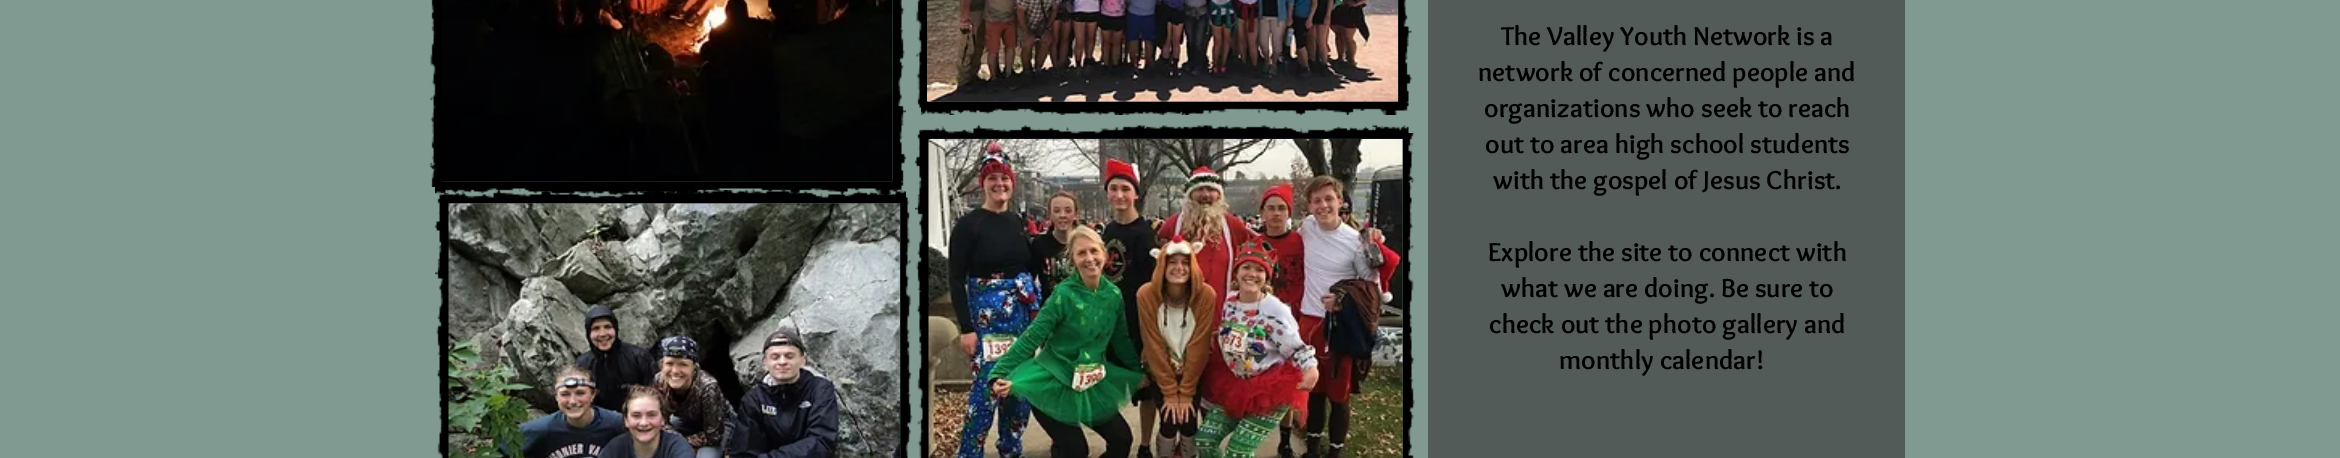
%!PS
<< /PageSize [2340 458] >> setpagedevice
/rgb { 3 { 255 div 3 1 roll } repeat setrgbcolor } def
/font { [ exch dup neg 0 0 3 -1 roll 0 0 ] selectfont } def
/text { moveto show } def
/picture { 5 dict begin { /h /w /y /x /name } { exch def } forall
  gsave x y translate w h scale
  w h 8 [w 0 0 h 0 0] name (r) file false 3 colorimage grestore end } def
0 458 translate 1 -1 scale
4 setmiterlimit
128 154 145 rgb
0 0 2340 458 rectfill
(img_03.rgb) 435 0 471 195 picture
(img_01.rgb) 429 0 14 187 picture
(img_02.rgb) 441 0 452 181 picture
(img_06.rgb) 921 0 491 115 picture
(img_04.rgb) 915 0 14 108 picture
(img_05.rgb) 927 0 471 102 picture
83 91 88 rgb
1428 0 477 458 rectfill
(img_09.rgb) 899 197 14 261 picture
(img_07.rgb) 435 190 471 268 picture
(img_08.rgb) 448 203 452 255 picture
(img_12.rgb) 1402 133 13 325 picture
(img_10.rgb) 915 125 494 333 picture
(img_11.rgb) 928 139 475 319 picture
/Overlock-Bold 27 font
0 0 0 rgb
(The Valley Youth Network is a) 1501 45 text
(network of concerned people and) 1478 81 text
(organizations who seek to reach) 1484 117 text
(out to area high school students) 1485 153 text
(with the gospel of Jesus Christ.) 1493 189 text
(Explore the site to connect with) 1488 261 text
(what we are doing. Be sure to) 1501 297 text
(check out the photo gallery and) 1489 333 text
(monthly calendar!) 1559 369 text
showpage
